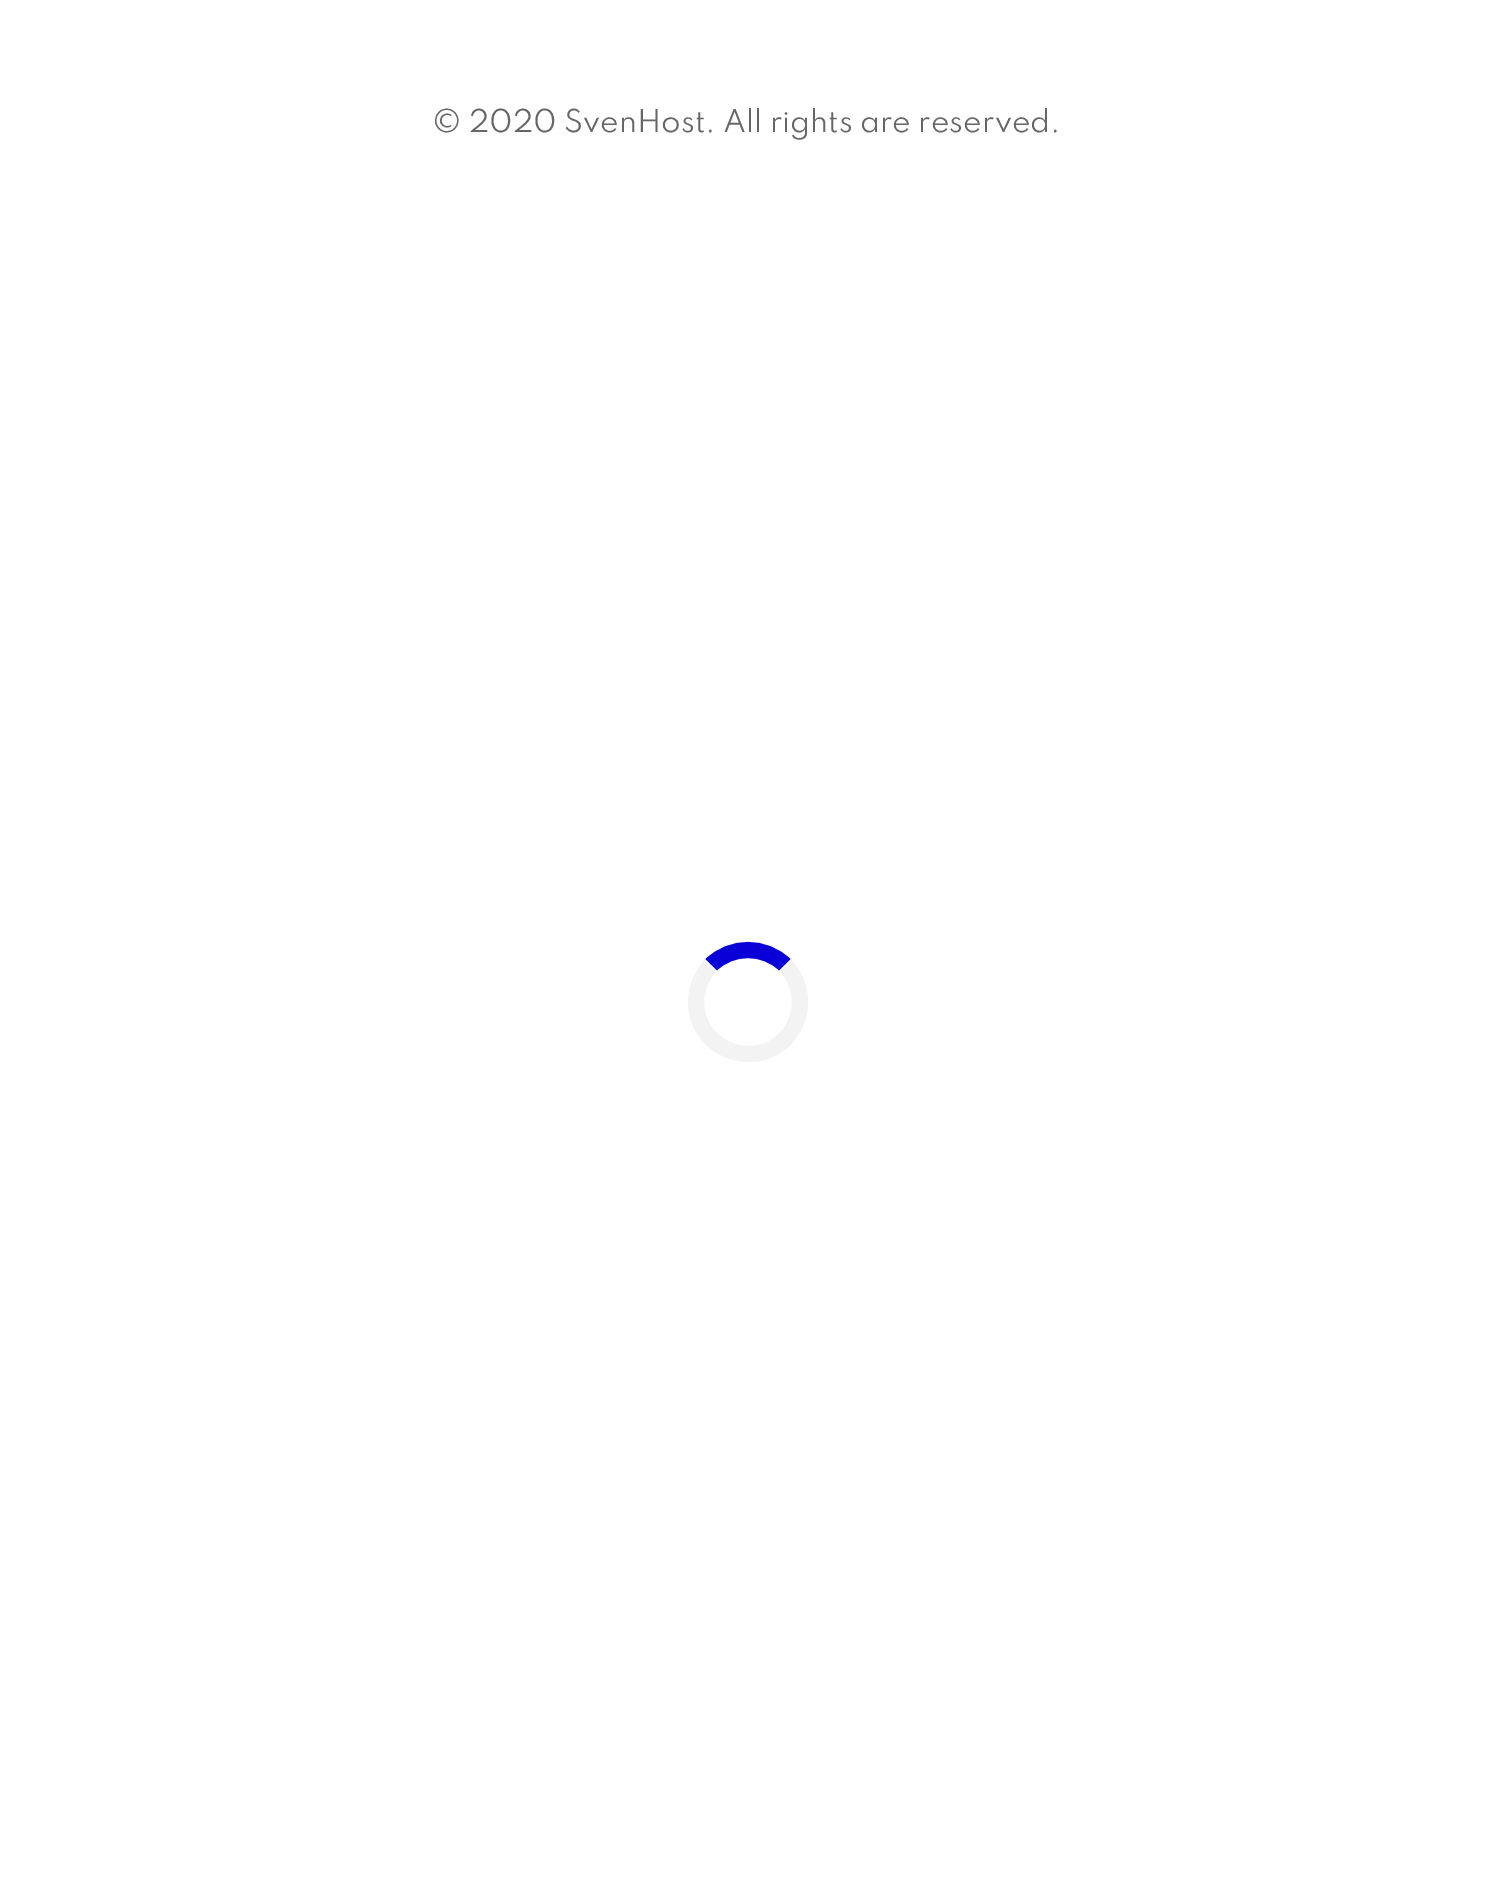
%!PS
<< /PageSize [1493 1883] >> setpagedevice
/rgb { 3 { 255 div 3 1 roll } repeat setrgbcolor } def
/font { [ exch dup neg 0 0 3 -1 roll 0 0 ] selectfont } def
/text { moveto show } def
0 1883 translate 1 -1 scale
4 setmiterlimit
255 255 255 rgb
0 0 1493 1883 rectfill
9 0 216 rgb
16 setlinewidth
711 965 moveto 20.5 -20 53.5 -20 74 0 rcurveto stroke
243 243 243 rgb
785 965 moveto 12 12.5 17.5 30.5 14 47 rcurveto -2 10 -7 19.5 -14 27 rcurveto -32.5 32.5 -89 9 -89 -37 rcurveto 0 -13.5 5.5 -27 15 -37 rcurveto stroke
/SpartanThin-Thin 28 font
102 102 102 rgb
(© 2020 SvenHost. All rights are reserved.) 432 132 text
showpage
